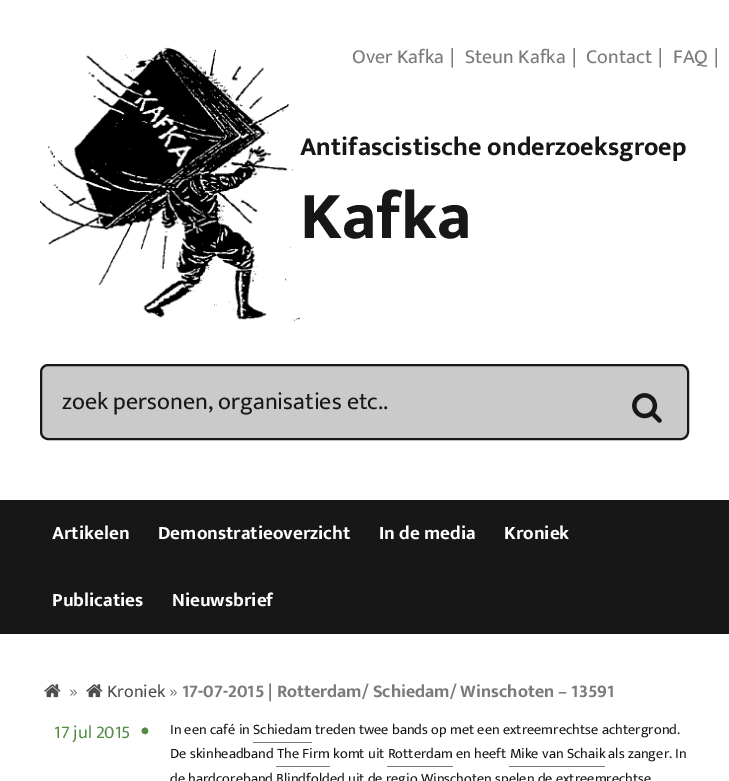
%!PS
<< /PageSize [729 781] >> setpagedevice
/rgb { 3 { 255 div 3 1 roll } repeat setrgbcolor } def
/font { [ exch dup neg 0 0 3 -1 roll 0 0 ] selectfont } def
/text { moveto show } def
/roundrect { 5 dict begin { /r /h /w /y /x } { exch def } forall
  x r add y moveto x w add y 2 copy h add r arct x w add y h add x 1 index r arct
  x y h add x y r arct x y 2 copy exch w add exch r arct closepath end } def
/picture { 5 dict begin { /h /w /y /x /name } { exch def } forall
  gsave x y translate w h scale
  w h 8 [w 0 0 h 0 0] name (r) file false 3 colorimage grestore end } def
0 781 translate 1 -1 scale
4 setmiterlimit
255 255 255 rgb
0 0 729 781 rectfill
(img_01.rgb) 40 47 260 275 picture
202 202 202 rgb
41 365 647 74 7 roundrect gsave fill grestore
23 23 23 rgb
2 setlinewidth
stroke
(img_02.rgb) 632 393 30 30 picture
0 500 729 134 rectfill
(img_03.rgb) 44 684 17 14 picture
(img_03.rgb) 86 684 17 14 picture
123 123 123 rgb
253 742 59 1 rectfill
276 766 54 1 rectfill
387 766 66 1 rectfill
509 766 96 1 rectfill
/EkMukta-Regular 20 font
(Over Kafka) 352 63 text
(|) 450 63 text
(Steun Kafka) 465 63 text
(|) 572 63 text
(Contact) 586 63 text
(|) 658 63 text
(FAQ) 673 63 text
(|) 714 63 text
/EkMukta-Bold 26 font
23 23 23 rgb
(Antifascistische onderzoeksgroep) 300 155 text
/EkMukta-Bold 68 font
(Kafka) 300 238 text
/EkMukta-Regular 24 font
(zoek personen, organisaties etc..) 62 409 text
/EkMukta-Bold 19 font
255 255 255 rgb
(Artikelen) 52 539 text
(Demonstratieoverzicht) 158 539 text
(In de media) 379 539 text
(Kroniek) 504 539 text
(Publicaties) 52 606 text
(Nieuwsbrief) 172 606 text
/EkMukta-Regular 18 font
123 123 123 rgb
(») 69 697 text
77 77 77 rgb
(Kroniek) 107 697 text
123 123 123 rgb
(») 169 697 text
/EkMukta-Bold 18 font
(17-07-2015 | Rotterdam/ Schiedam/ Winschoten – 13591) 182 697 text
/EkMukta-Regular 18 font
82 140 67 rgb
(17 jul 2015) 54 738 text
/EkMukta-Regular 27 font
(•) 140 738 text
/EkMukta-Regular 14.4 font
23 23 23 rgb
(In een café in Schiedam treden twee bands op met een extreemrechtse achtergrond.) 170 734 text
(De skinheadband The Firm komt uit Rotterdam en heeft Mike van Schaik als zanger. In) 170 758 text
(de hardcoreband Blindfolded uit de regio Winschoten spelen de extreemrechtse) 170 783 text
showpage
